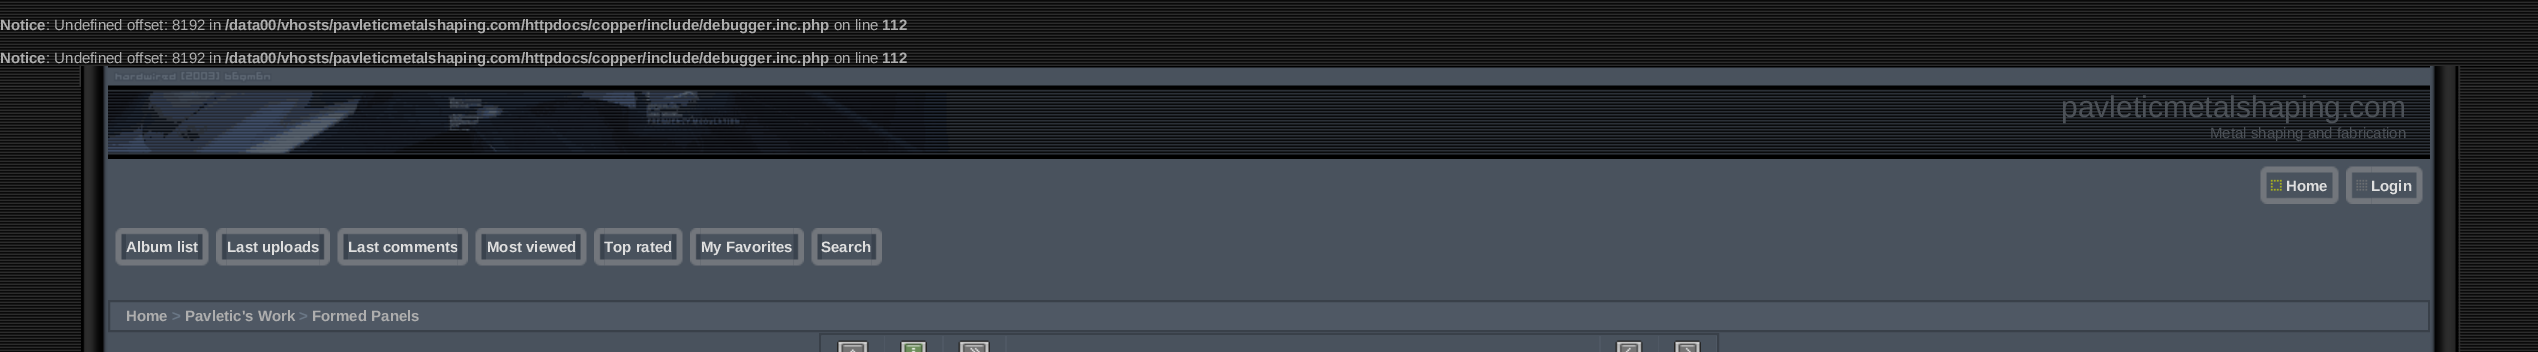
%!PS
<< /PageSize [2538 352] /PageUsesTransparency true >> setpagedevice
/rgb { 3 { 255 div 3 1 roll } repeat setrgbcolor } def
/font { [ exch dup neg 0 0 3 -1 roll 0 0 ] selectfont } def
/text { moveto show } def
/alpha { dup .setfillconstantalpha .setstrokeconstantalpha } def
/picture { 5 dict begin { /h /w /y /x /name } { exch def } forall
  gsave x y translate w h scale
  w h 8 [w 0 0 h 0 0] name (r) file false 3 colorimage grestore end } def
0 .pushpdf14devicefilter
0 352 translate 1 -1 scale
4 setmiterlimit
255 255 255 rgb
0 0 2538 352 rectfill
(img_01.rgb) 0 0 2538 352 picture
(img_02.rgb) 0 66 81 21 picture
(img_03.rgb) 81 66 27 93 picture
(img_04.rgb) 108 66 2322 93 picture
(img_05.rgb) 108 71 842 83 picture
(img_06.rgb) 2430 66 29 93 picture
(img_07.rgb) 2458 66 3 286 picture
0.5 alpha
0 0 0 rgb
2458 66 1 21 rectfill
1 alpha
(img_08.rgb) 2458 66 80 21 picture
(img_09.rgb) 81 159 27 193 picture
73 82 93 rgb
108 159 2322 193 rectfill
(img_10.rgb) 2260 166 26 38 picture
(img_11.rgb) 2286 166 42 38 picture
(img_12.rgb) 2328 166 11 38 picture
(img_14.rgb) 2371 166 41 38 picture
(img_13.rgb) 2346 166 26 38 picture
(img_12.rgb) 2412 166 11 38 picture
(img_15.rgb) 115 228 11 38 picture
(img_16.rgb) 126 228 72 38 picture
(img_19.rgb) 226 228 94 38 picture
(img_18.rgb) 216 228 11 38 picture
(img_20.rgb) 319 228 11 38 picture
(img_15.rgb) 337 228 11 38 picture
(img_21.rgb) 348 228 110 38 picture
(img_15.rgb) 475 228 11 38 picture
(img_23.rgb) 486 228 90 38 picture
(img_24.rgb) 576 228 11 38 picture
(img_26.rgb) 604 228 68 38 picture
(img_25.rgb) 594 228 11 38 picture
(img_17.rgb) 672 228 11 38 picture
(img_27.rgb) 700 228 94 38 picture
(img_18.rgb) 690 228 11 38 picture
(img_20.rgb) 793 228 11 38 picture
(img_15.rgb) 811 228 11 38 picture
(img_28.rgb) 822 228 50 38 picture
(img_20.rgb) 871 228 11 38 picture
79 88 100 rgb
109 301 moveto 2320 0 rlineto 0 30 rlineto -2320 0 rlineto closepath gsave fill grestore
57 64 73 rgb
2 setlinewidth
stroke
79 88 100 rgb
820 334 moveto 898 0 rlineto 0 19 rlineto -898 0 rlineto closepath gsave fill grestore
57 64 73 rgb
stroke
73 82 93 rgb
822 336 62 16 rectfill
(img_29.rgb) 837 340 32 12 picture
885 336 57 16 rectfill
(img_30.rgb) 900 340 27 12 picture
944 336 61 16 rectfill
(img_31.rgb) 958 340 32 12 picture
1007 336 592 16 rectfill
1601 336 57 16 rectfill
(img_32.rgb) 1615 340 28 12 picture
1659 336 57 16 rectfill
(img_33.rgb) 1674 340 27 12 picture
(img_34.rgb) 2430 159 29 193 picture
/LiberationSans-Bold 15 font
174 174 174 rgb
(Notice) 0 30 text
/LiberationSans-Regular 15 font
(: Undefined offset: 8192 in) 46 30 text
/LiberationSans-Bold 15 font
(/data00/vhosts/pavleticmetalshaping.com/httpdocs/copper/include/debugger.inc.php) 225 30 text
/LiberationSans-Regular 15 font
(on line) 834 30 text
/LiberationSans-Bold 15 font
(112) 882 30 text
(Notice) 0 63 text
/LiberationSans-Regular 15 font
(: Undefined offset: 8192 in) 46 63 text
/LiberationSans-Bold 15 font
(/data00/vhosts/pavleticmetalshaping.com/httpdocs/copper/include/debugger.inc.php) 225 63 text
/LiberationSans-Regular 15 font
(on line) 834 63 text
/LiberationSans-Bold 15 font
(112) 882 63 text
/LiberationSans-Regular 30 font
76 81 87 rgb
(pavleticmetalshaping.com) 2061 117 text
/LiberationSans-Regular 15 font
(Metal shaping and fabrication) 2210 138 text
/LiberationSans-Bold 15 font
223 223 223 rgb
(Home) 2286 191 text
(Login) 2371 191 text
(Album list) 126 252 text
(img_17.rgb) 198 228 11 38 picture
(Last uploads) 227 252 text
(Last comments) 348 252 text
(img_22.rgb) 457 228 11 38 picture
(Most viewed) 487 252 text
(Top rated) 604 252 text
(My Favorites) 701 252 text
(Search) 821 252 text
174 174 174 rgb
(Home) 126 321 text
106 119 134 rgb
(>) 172 321 text
174 174 174 rgb
(Pavletic's Work) 185 321 text
106 119 134 rgb
(>) 299 321 text
174 174 174 rgb
(Formed Panels) 312 321 text
.poppdf14devicefilter showpage
